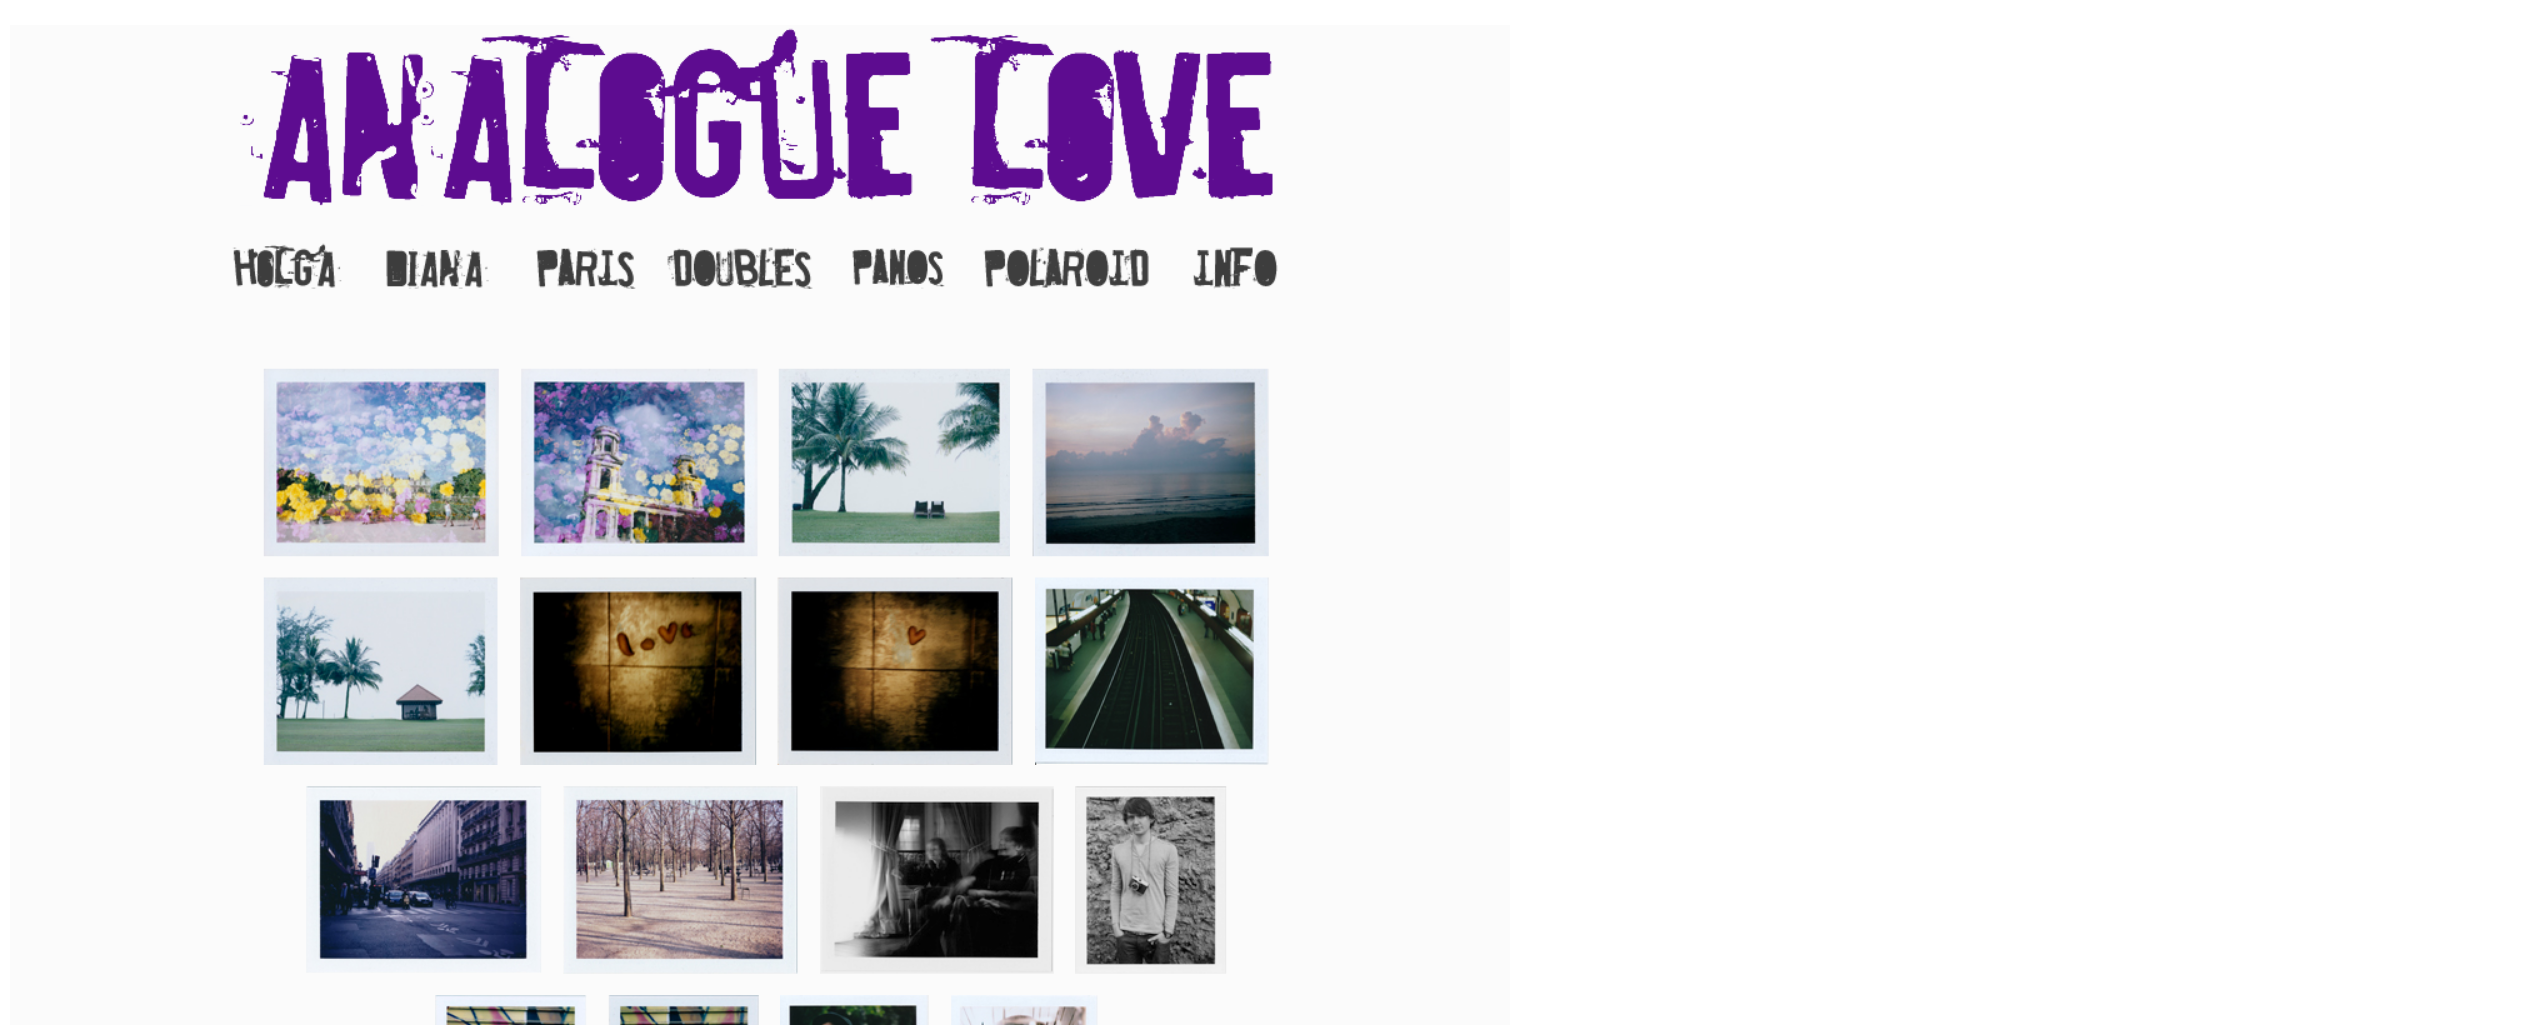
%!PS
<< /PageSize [2531 1025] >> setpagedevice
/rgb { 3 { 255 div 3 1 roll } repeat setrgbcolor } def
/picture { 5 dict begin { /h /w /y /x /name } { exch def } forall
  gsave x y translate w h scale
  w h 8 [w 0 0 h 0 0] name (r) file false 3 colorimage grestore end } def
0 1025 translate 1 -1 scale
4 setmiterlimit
255 255 255 rgb
0 0 2531 1025 rectfill
251 251 251 rgb
10 25 1500 1000 rectfill
(img_01.rgb) 240 28 1033 178 picture
(img_02.rgb) 232 243 110 46 picture
(img_03.rgb) 386 248 103 41 picture
(img_04.rgb) 536 247 100 42 picture
(img_05.rgb) 667 247 146 42 picture
(img_06.rgb) 852 248 93 41 picture
(img_07.rgb) 983 247 166 41 picture
(img_08.rgb) 1192 247 86 42 picture
(img_09.rgb) 263 368 236 189 picture
(img_10.rgb) 521 368 237 189 picture
(img_11.rgb) 778 368 232 189 picture
(img_12.rgb) 1032 368 237 189 picture
(img_13.rgb) 263 577 235 188 picture
(img_14.rgb) 520 577 237 188 picture
(img_15.rgb) 777 577 236 188 picture
(img_16.rgb) 1035 577 234 188 picture
(img_17.rgb) 306 786 236 187 picture
(img_18.rgb) 563 786 235 188 picture
(img_19.rgb) 820 786 234 188 picture
(img_20.rgb) 1075 786 152 188 picture
(img_21.rgb) 435 995 152 30 picture
(img_22.rgb) 608 995 151 30 picture
(img_23.rgb) 780 995 149 30 picture
(img_24.rgb) 951 995 147 30 picture
showpage
